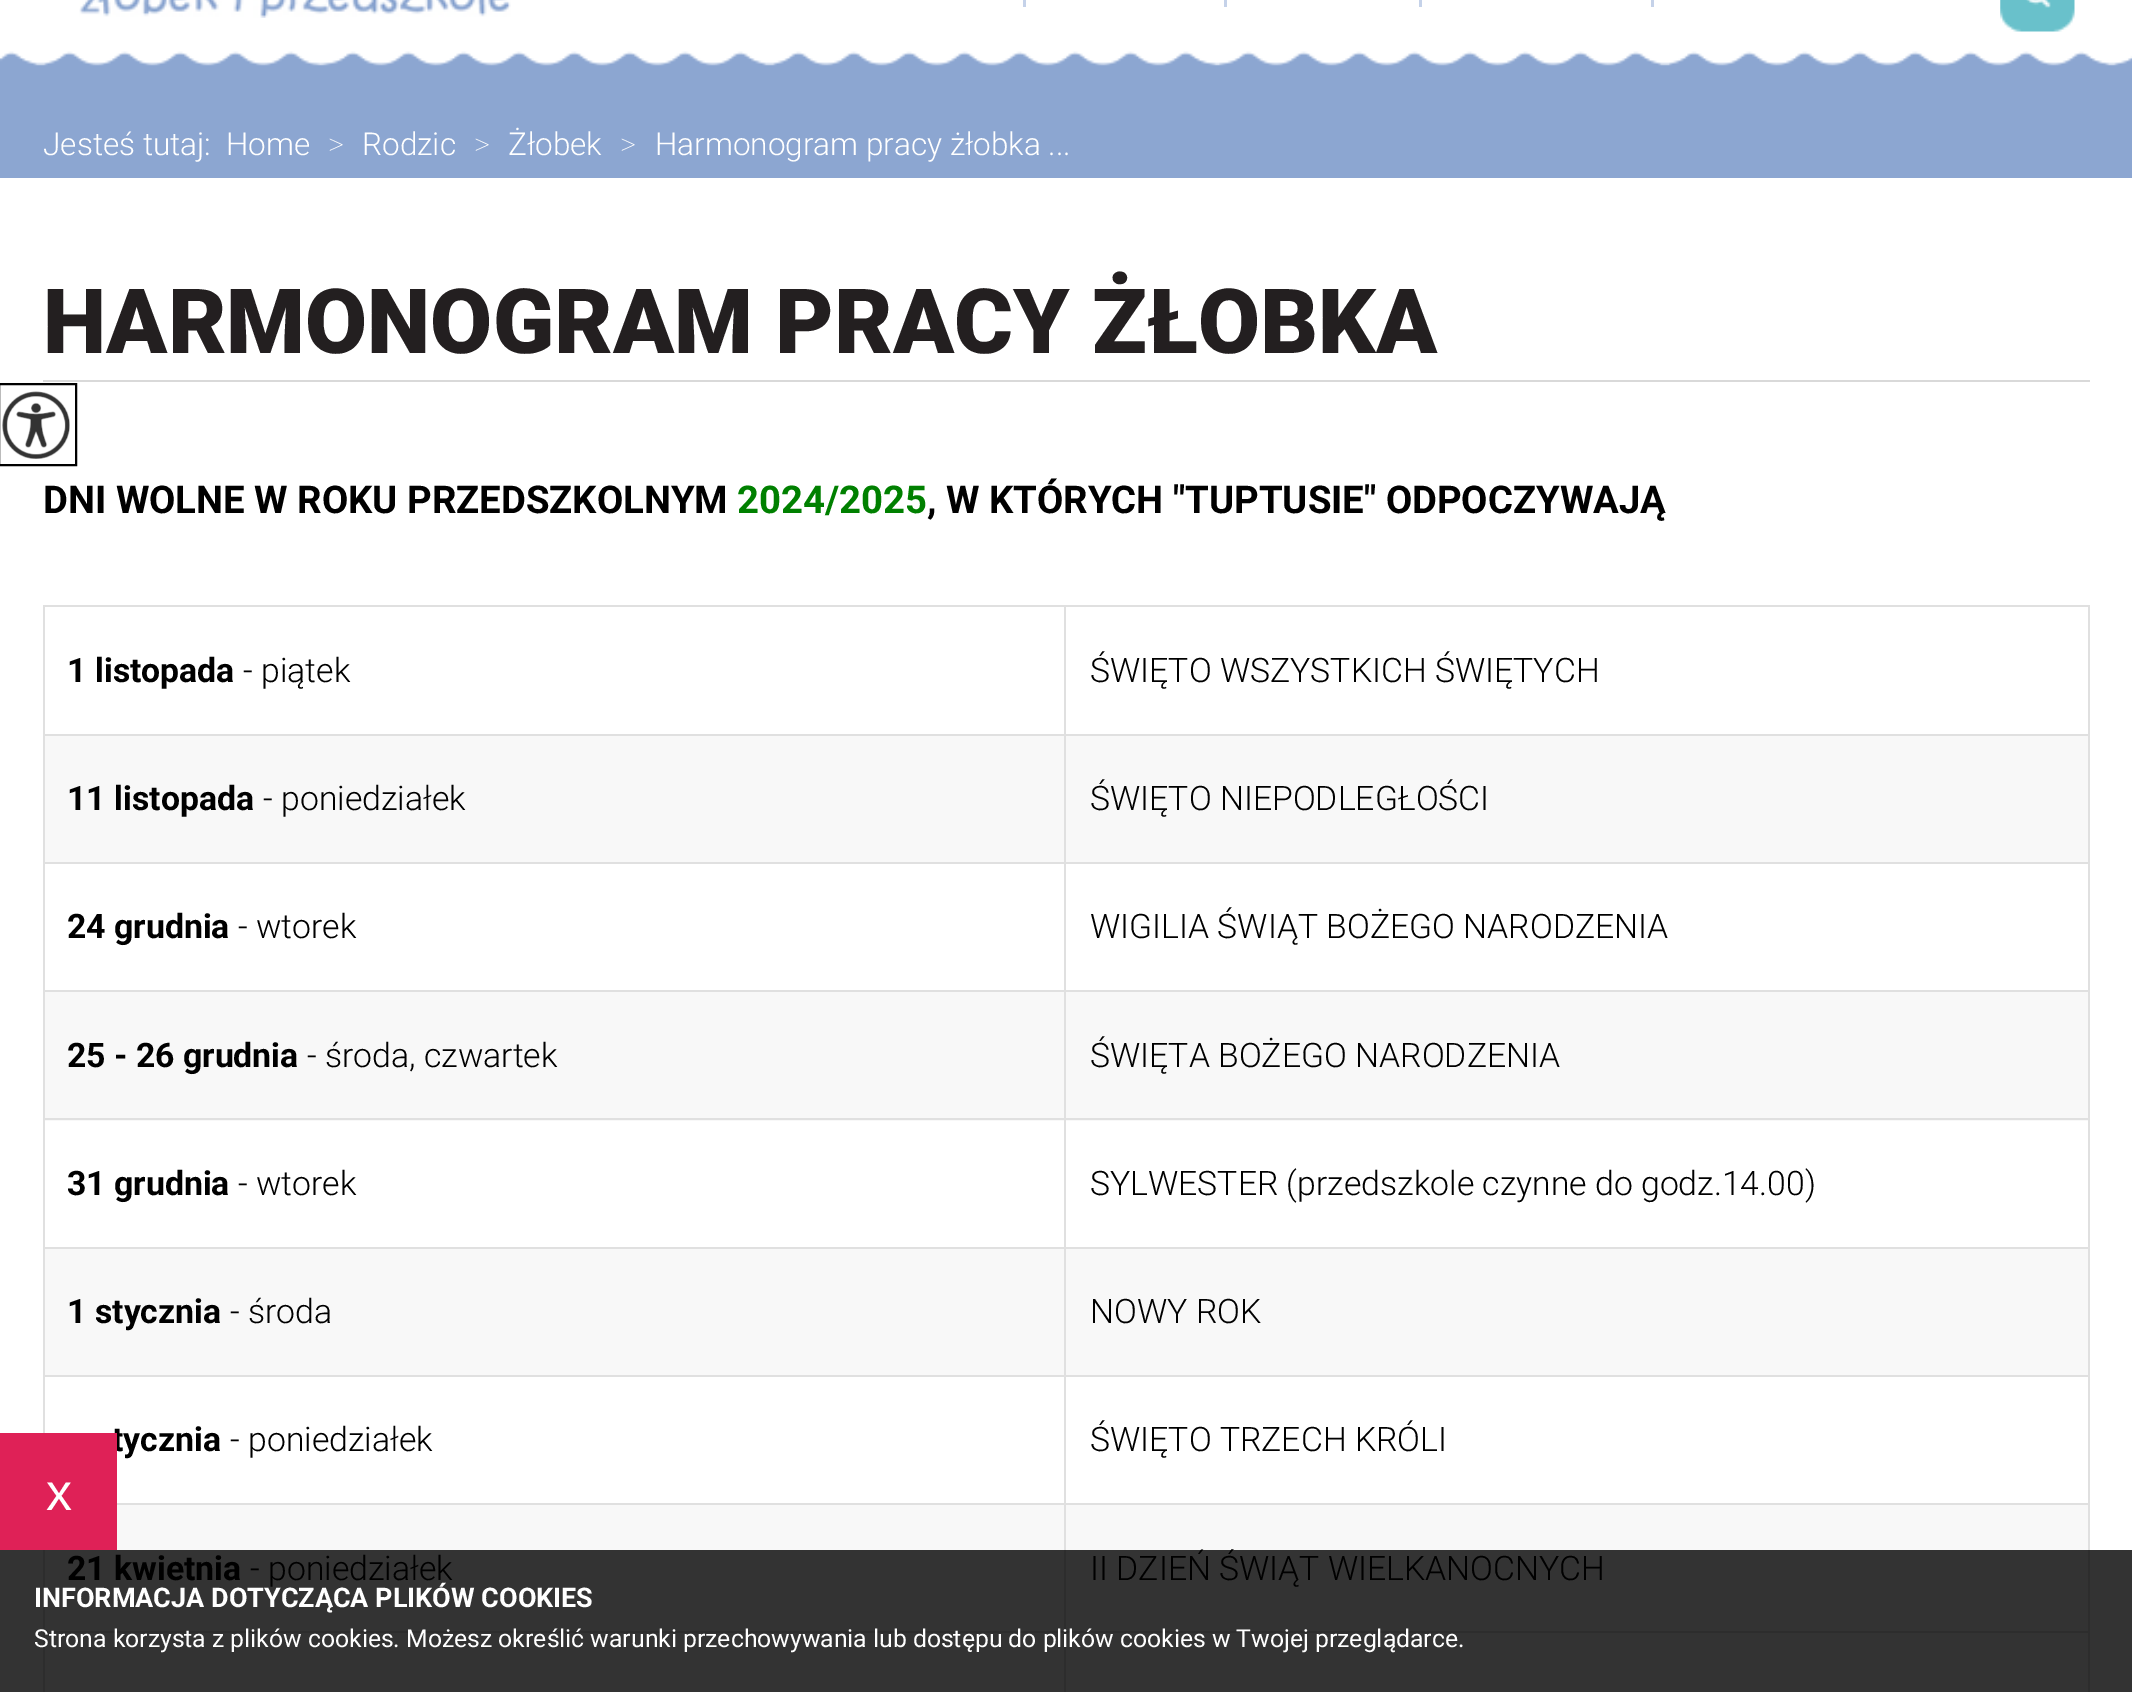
%!PS
<< /PageSize [2132 1692] >> setpagedevice
/rgb { 3 { 255 div 3 1 roll } repeat setrgbcolor } def
/font { [ exch dup neg 0 0 3 -1 roll 0 0 ] selectfont } def
/text { moveto show } def
/picture { 5 dict begin { /h /w /y /x /name } { exch def } forall
  gsave x y translate w h scale
  w h 8 [w 0 0 h 0 0] name (r) file false 3 colorimage grestore end } def
0 1692 translate 1 -1 scale
4 setmiterlimit
255 255 255 rgb
0 0 2132 1692 rectfill
51 51 51 rgb
0 1550 2132 142 rectfill
140 166 209 rgb
0 51 2132 127 rectfill
(img_01.rgb) 0 20 2132 46 picture
197 210 233 rgb
1023 0 3 7 rectfill
1224 0 3 7 rectfill
1419 0 3 7 rectfill
1651 0 3 7 rectfill
(img_02.rgb) 2000 0 75 32 picture
(img_03.rgb) 79 0 432 18 picture
0 0 0 rgb
2 setlinewidth
-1 384 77 81 rectstroke
(img_04.rgb) 2 391 68 68 picture
217 217 217 rgb
43 380 2047 2 rectfill
224 224 224 rgb
1064 605 1026 2 rectfill
1064 734 1026 2 rectfill
248 248 248 rgb
45 736 2043 126 rectfill
224 224 224 rgb
1064 862 1026 2 rectfill
1064 990 1026 2 rectfill
248 248 248 rgb
45 992 2043 129 rectfill
224 224 224 rgb
1064 1118 1026 2 rectfill
1064 1247 1026 2 rectfill
248 248 248 rgb
45 1249 2043 126 rectfill
224 224 224 rgb
1064 1375 1026 2 rectfill
1064 1503 1026 2 rectfill
248 248 248 rgb
117 1505 1971 45 rectfill
224 224 224 rgb
1064 1503 2 47 rectfill
117 1503 950 2 rectfill
1064 1375 2 130 rectfill
43 1375 1024 2 rectfill
1064 1247 2 130 rectfill
43 1247 1024 2 rectfill
1064 1118 2 131 rectfill
43 1118 1024 2 rectfill
1064 990 2 131 rectfill
43 990 1024 2 rectfill
1064 862 2 130 rectfill
43 862 1024 2 rectfill
1064 734 2 130 rectfill
43 734 1024 2 rectfill
1064 605 2 131 rectfill
43 605 1024 2 rectfill
43 1375 2 58 rectfill
43 1247 2 130 rectfill
43 1118 2 131 rectfill
43 990 2 131 rectfill
43 862 2 130 rectfill
43 734 2 130 rectfill
43 605 2 131 rectfill
2088 1503 2 47 rectfill
2088 1375 2 130 rectfill
2088 1247 2 130 rectfill
2088 1118 2 131 rectfill
2088 990 2 131 rectfill
2088 862 2 130 rectfill
2088 734 2 130 rectfill
2088 605 2 131 rectfill
45 45 45 rgb
1064 1631 1026 2 rectfill
1064 1631 2 61 rectfill
43 1631 1024 2 rectfill
1064 1550 2 84 rectfill
43 1550 2 142 rectfill
2088 1550 2 142 rectfill
/Roboto-Light 31.5 font
255 255 255 rgb
(Jesteś tutaj:) 43 155 text
(Home) 226 155 text
/Roboto-Thin 31.5 font
(>) 328 155 text
/Roboto-Light 31.5 font
(Rodzic) 362 155 text
/Roboto-Thin 31.5 font
(>) 474 155 text
/Roboto-Light 31.5 font
(Żłobek) 508 155 text
/Roboto-Thin 31.5 font
(>) 620 155 text
/Roboto-Light 31.5 font
(Harmonogram pracy żłobka ...) 655 155 text
/Roboto-Black 90 font
35 31 32 rgb
(HARMONOGRAM PRACY ŻŁOBKA) 43 353 text
/Roboto-Bold 38.25 font
0 0 0 rgb
(DNI WOLNE W ROKU PRZEDSZKOLNYM) 43 513 text
0 128 0 rgb
(2024/2025) 737 513 text
0 0 0 rgb
(, W KTÓRYCH "TUPTUSIE" ODPOCZYWAJĄ) 927 513 text
/Roboto-Bold 33.75 font
(1 listopada) 67 682 text
/Roboto-Light 33.75 font
(- piątek) 243 682 text
(ŚWIĘTO WSZYSTKICH ŚWIĘTYCH) 1090 682 text
/Roboto-Bold 33.75 font
(11 listopada) 67 810 text
/Roboto-Light 33.75 font
(- poniedziałek) 263 810 text
(ŚWIĘTO NIEPODLEGŁOŚCI) 1090 810 text
/Roboto-Bold 33.75 font
(24 grudnia) 67 938 text
/Roboto-Light 33.75 font
(- wtorek) 238 938 text
(WIGILIA ŚWIĄT BOŻEGO NARODZENIA) 1090 938 text
/Roboto-Bold 33.75 font
(25 - 26 grudnia) 67 1067 text
/Roboto-Light 33.75 font
(- środa, czwartek) 307 1067 text
(ŚWIĘTA BOŻEGO NARODZENIA) 1090 1067 text
/Roboto-Bold 33.75 font
(31 grudnia) 67 1195 text
/Roboto-Light 33.75 font
(- wtorek) 238 1195 text
(SYLWESTER \(przedszkole czynne do godz.14.00\)) 1090 1195 text
/Roboto-Bold 33.75 font
(1 stycznia) 67 1323 text
/Roboto-Light 33.75 font
(- środa) 230 1323 text
(NOWY ROK) 1090 1323 text
/Roboto-Bold 33.75 font
(tycznia) 112 1451 text
/Roboto-Light 33.75 font
(- poniedziałek) 230 1451 text
(ŚWIĘTO TRZECH KRÓLI) 1090 1451 text
/Roboto-Bold 33.75 font
(21 kwietnia) 67 1580 text
/Roboto-Light 33.75 font
(- poniedziałek) 250 1580 text
(II DZIEŃ ŚWIĄT WIELKANOCNYCH) 1090 1580 text
223 33 87 rgb
0 1433 117 117 rectfill
/LiberationSans-Regular 52 font
255 255 255 rgb
(x) 46 1510 text
/Roboto-Bold 27 font
(INFORMACJA DOTYCZĄCA PLIKÓW COOKIES) 34 1607 text
/Roboto-Regular 24.75 font
(Strona korzysta z plików cookies. Możesz określić warunki przechowywania lub dostępu do plików cookies w Twojej przeglądarce.) 34 1647 text
showpage
